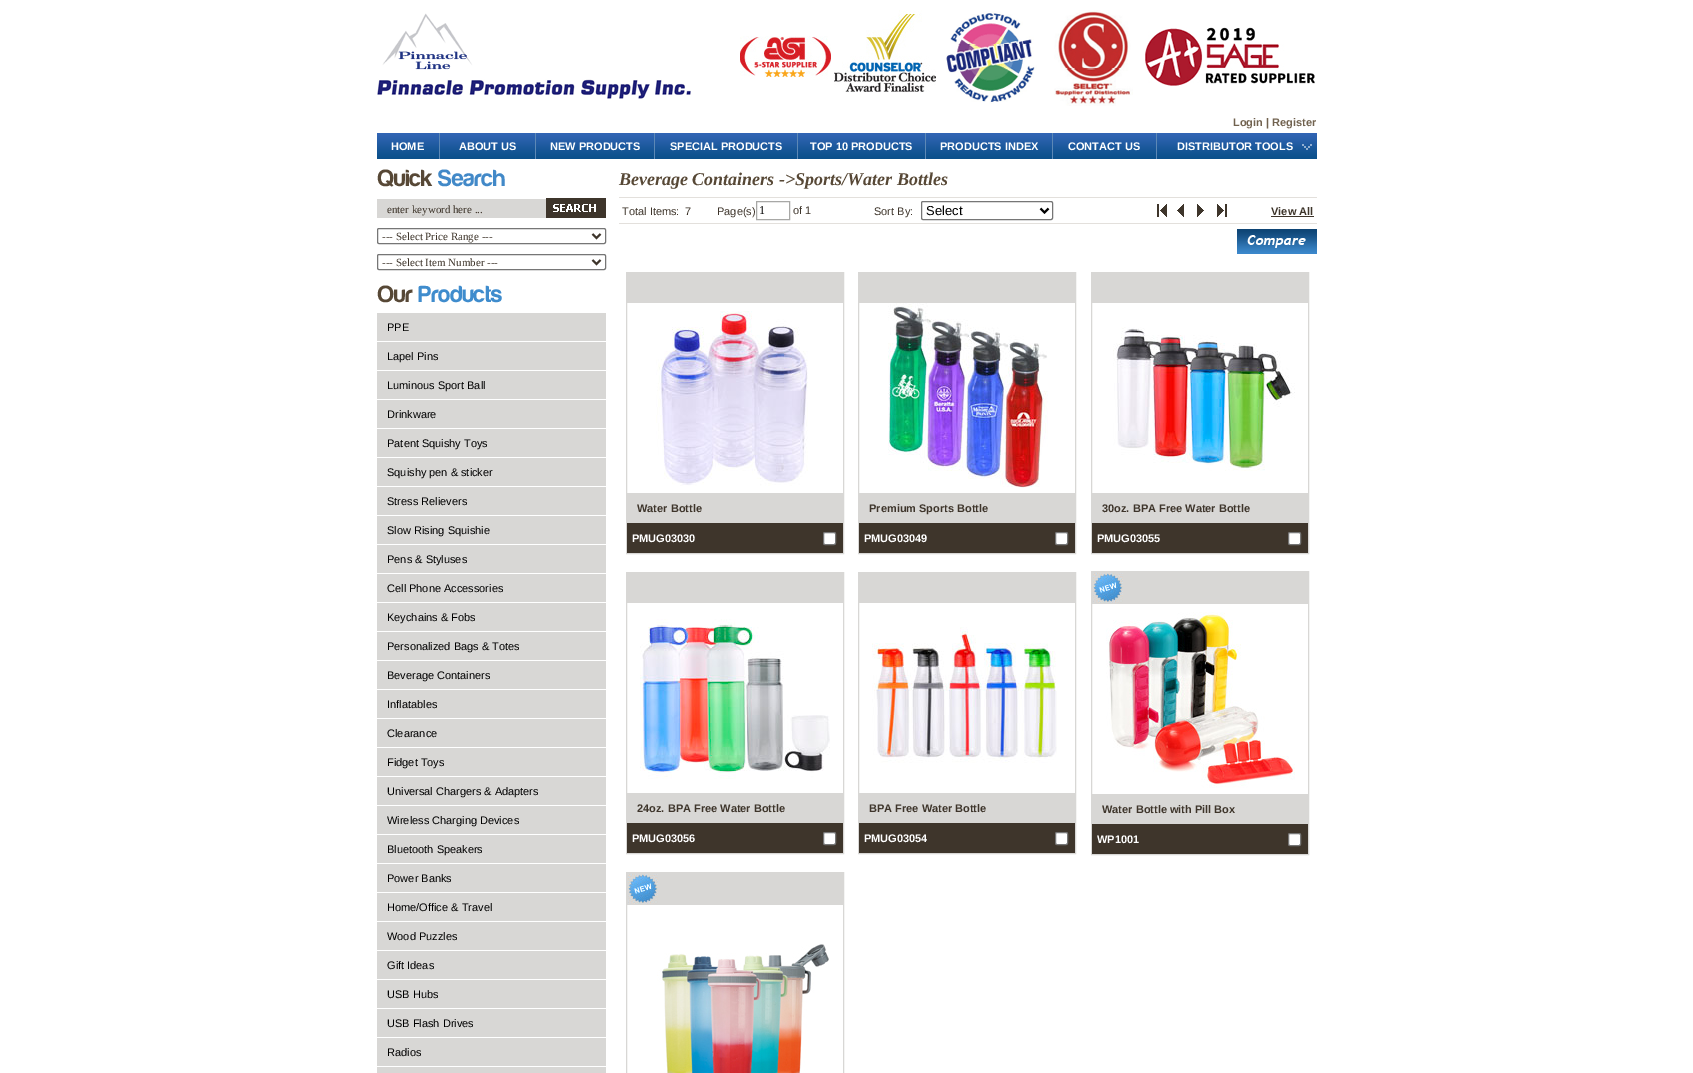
%!PS
<< /PageSize [1693 1073] >> setpagedevice
/rgb { 3 { 255 div 3 1 roll } repeat setrgbcolor } def
/font { [ exch dup neg 0 0 3 -1 roll 0 0 ] selectfont } def
/text { moveto show } def
/roundrect { 5 dict begin { /r /h /w /y /x } { exch def } forall
  x r add y moveto x w add y 2 copy h add r arct x w add y h add x 1 index r arct
  x y h add x y r arct x y 2 copy exch w add exch r arct closepath end } def
/picture { 5 dict begin { /h /w /y /x /name } { exch def } forall
  gsave x y translate w h scale
  w h 8 [w 0 0 h 0 0] name (r) file false 3 colorimage grestore end } def
0 1073 translate 1 -1 scale
4 setmiterlimit
255 255 255 rgb
0 0 1693 1073 rectfill
(img_01.rgb) 377 13 314 86 picture
(img_02.rgb) 740 36 91 44 picture
(img_03.rgb) 834 10 102 82 picture
(img_04.rgb) 946 11 91 93 picture
(img_05.rgb) 1054 10 79 96 picture
(img_06.rgb) 1145 27 170 59 picture
(img_07.rgb) 377 133 940 26 picture
92 136 182 rgb
439 133 1 26 rectfill
535 133 1 26 rectfill
654 133 1 26 rectfill
797 133 1 26 rectfill
925 133 1 26 rectfill
1052 133 1 26 rectfill
1156 133 1 26 rectfill
(img_08.rgb) 1302 144 10 6 picture
(img_09.rgb) 377 169 128 18 picture
216 215 213 rgb
377 199 169 19 rectfill
(img_10.rgb) 546 198 60 20 picture
118 118 118 rgb
377.5 228.5 228 15 1.5 roundrect stroke
62 53 43 rgb
2 setlinewidth
592.5 234 moveto 4 4 rlineto 4 -4 rlineto stroke
118 118 118 rgb
1 setlinewidth
377.5 254.5 228 15 1.5 roundrect stroke
62 53 43 rgb
2 setlinewidth
592.5 260 moveto 4 4 rlineto 4 -4 rlineto stroke
(img_11.rgb) 377 285 125 18 picture
216 215 213 rgb
377 313 229 28 rectfill
377 342 229 28 rectfill
377 371 229 28 rectfill
377 400 229 28 rectfill
377 429 229 28 rectfill
377 458 229 28 rectfill
377 487 229 28 rectfill
377 516 229 28 rectfill
377 545 229 28 rectfill
377 574 229 28 rectfill
377 603 229 28 rectfill
377 632 229 28 rectfill
377 661 229 28 rectfill
377 690 229 28 rectfill
377 719 229 28 rectfill
377 748 229 28 rectfill
377 777 229 28 rectfill
377 806 229 28 rectfill
377 835 229 28 rectfill
377 864 229 28 rectfill
377 893 229 28 rectfill
377 922 229 28 rectfill
377 951 229 28 rectfill
377 980 229 28 rectfill
377 1009 229 28 rectfill
377 1038 229 28 rectfill
377 1067 229 6 rectfill
227 224 220 rgb
619 197 698 1 rectfill
619 223 698 1 rectfill
168 168 166 rgb
1 setlinewidth
756.5 201.5 33 18 rectstroke
118 118 118 rgb
921.5 201.5 131 18 1.5 roundrect stroke
0 0 0 rgb
2 setlinewidth
1040.5 208.5 moveto 4 4 rlineto 4 -4 rlineto stroke
(img_12.rgb) 1157 204 10 13 picture
(img_13.rgb) 1177 204 7 13 picture
(img_14.rgb) 1197 204 7 13 picture
(img_15.rgb) 1217 204 10 13 picture
62 53 43 rgb
1271 216 43 1 rectfill
(img_16.rgb) 1237 229 80 25 picture
216 215 213 rgb
1 setlinewidth
626.5 272.5 217 281 rectstroke
627 273 216 30 rectfill
(img_17.rgb) 656 311 152 175 picture
627 493 216 30 rectfill
62 53 43 rgb
627 523 216 30 rectfill
255 255 255 rgb
823.5 532.5 12 12 1.5 roundrect gsave fill grestore
118 118 118 rgb
stroke
216 215 213 rgb
858.5 272.5 217 281 rectstroke
859 273 216 30 rectfill
(img_18.rgb) 888 303 160 185 picture
859 493 216 30 rectfill
62 53 43 rgb
859 523 216 30 rectfill
255 255 255 rgb
1055.5 532.5 12 12 1.5 roundrect gsave fill grestore
118 118 118 rgb
stroke
216 215 213 rgb
1091.5 272.5 217 281 rectstroke
1092 273 216 30 rectfill
(img_19.rgb) 1113 327 182 144 picture
1092 493 216 30 rectfill
62 53 43 rgb
1092 523 216 30 rectfill
255 255 255 rgb
1288.5 532.5 12 12 1.5 roundrect gsave fill grestore
118 118 118 rgb
stroke
216 215 213 rgb
626.5 572.5 217 281 rectstroke
627 573 216 30 rectfill
(img_20.rgb) 640 619 190 160 picture
627 793 216 30 rectfill
62 53 43 rgb
627 823 216 30 rectfill
255 255 255 rgb
823.5 832.5 12 12 1.5 roundrect gsave fill grestore
118 118 118 rgb
stroke
216 215 213 rgb
858.5 572.5 217 281 rectstroke
859 573 216 30 rectfill
(img_21.rgb) 872 627 185 136 picture
859 793 216 30 rectfill
62 53 43 rgb
859 823 216 30 rectfill
255 255 255 rgb
1055.5 832.5 12 12 1.5 roundrect gsave fill grestore
118 118 118 rgb
stroke
216 215 213 rgb
1091.5 571.5 217 283 rectstroke
1092 572 216 32 rectfill
(img_22.rgb) 1093 573 30 30 picture
(img_23.rgb) 1106 612 189 176 picture
1092 794 216 30 rectfill
62 53 43 rgb
1092 824 216 30 rectfill
255 255 255 rgb
1288.5 833.5 12 12 1.5 roundrect gsave fill grestore
118 118 118 rgb
stroke
216 215 213 rgb
626.5 872.5 217 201 rectstroke
627 873 216 32 rectfill
(img_22.rgb) 628 874 30 30 picture
(img_24.rgb) 657 944 172 129 picture
/LiberationSans-Bold 11 font
113 98 79 rgb
(Login | Register) 1233 126 text
255 255 255 rgb
(HOME) 391 150 text
(ABOUT US) 459 150 text
(NEW PRODUCTS) 550 150 text
(SPECIAL PRODUCTS) 670 150 text
(TOP 10 PRODUCTS) 810 150 text
(PRODUCTS INDEX) 940 150 text
(CONTACT US) 1068 150 text
(DISTRIBUTOR TOOLS) 1177 150 text
/LiberationSerif-Regular 11 font
62 53 43 rgb
(enter keyword here ...) 387 213 text
(--- Select Price Range ---) 382 240 text
(--- Select Item Number ---) 382 266 text
/LiberationSans-Regular 11 font
0 0 0 rgb
(PPE) 387 331 text
(Lapel Pins) 387 360 text
(Luminous Sport Ball) 387 389 text
(Drinkware) 387 418 text
(Patent Squishy Toys) 387 447 text
(Squishy pen & sticker) 387 476 text
(Stress Relievers) 387 505 text
(Slow Rising Squishie) 387 534 text
(Pens & Styluses) 387 563 text
(Cell Phone Accessories) 387 592 text
(Keychains & Fobs) 387 621 text
(Personalized Bags & Totes) 387 650 text
(Beverage Containers) 387 679 text
(Inflatables) 387 708 text
(Clearance) 387 737 text
(Fidget Toys) 387 766 text
(Universal Chargers & Adapters) 387 795 text
(Wireless Charging Devices) 387 824 text
(Bluetooth Speakers) 387 853 text
(Power Banks) 387 882 text
(Home/Office & Travel) 387 911 text
(Wood Puzzles) 387 940 text
(Gift Ideas) 387 969 text
(USB Hubs) 387 998 text
(USB Flash Drives) 387 1027 text
(Radios) 387 1056 text
/LiberationSerif-BoldItalic 18 font
87 72 54 rgb
(Beverage Containers ->Sports/Water Bottles) 619 185 text
/LiberationSans-Regular 11 font
62 53 43 rgb
(Total Items:) 622 215 text
(7) 685 215 text
(Page\(s\)) 717 215 text
/LiberationSerif-Regular 12 font
0 0 0 rgb
(1) 759 214 text
/LiberationSans-Regular 11 font
62 53 43 rgb
(of 1) 793 214 text
(Sort By:) 874 215 text
/LiberationSans-Regular 13 font
0 0 0 rgb
(Select) 926 215 text
/LiberationSans-Bold 11 font
62 53 43 rgb
(View All) 1271 215 text
(Water Bottle) 637 512 text
255 255 255 rgb
(PMUG03030) 632 542 text
62 53 43 rgb
(Premium Sports Bottle) 869 512 text
255 255 255 rgb
(PMUG03049) 864 542 text
62 53 43 rgb
(30oz. BPA Free Water Bottle) 1102 512 text
255 255 255 rgb
(PMUG03055) 1097 542 text
62 53 43 rgb
(24oz. BPA Free Water Bottle) 637 812 text
255 255 255 rgb
(PMUG03056) 632 842 text
62 53 43 rgb
(BPA Free Water Bottle) 869 812 text
255 255 255 rgb
(PMUG03054) 864 842 text
62 53 43 rgb
(Water Bottle with Pill Box) 1102 813 text
255 255 255 rgb
(WP1001) 1097 843 text
showpage
